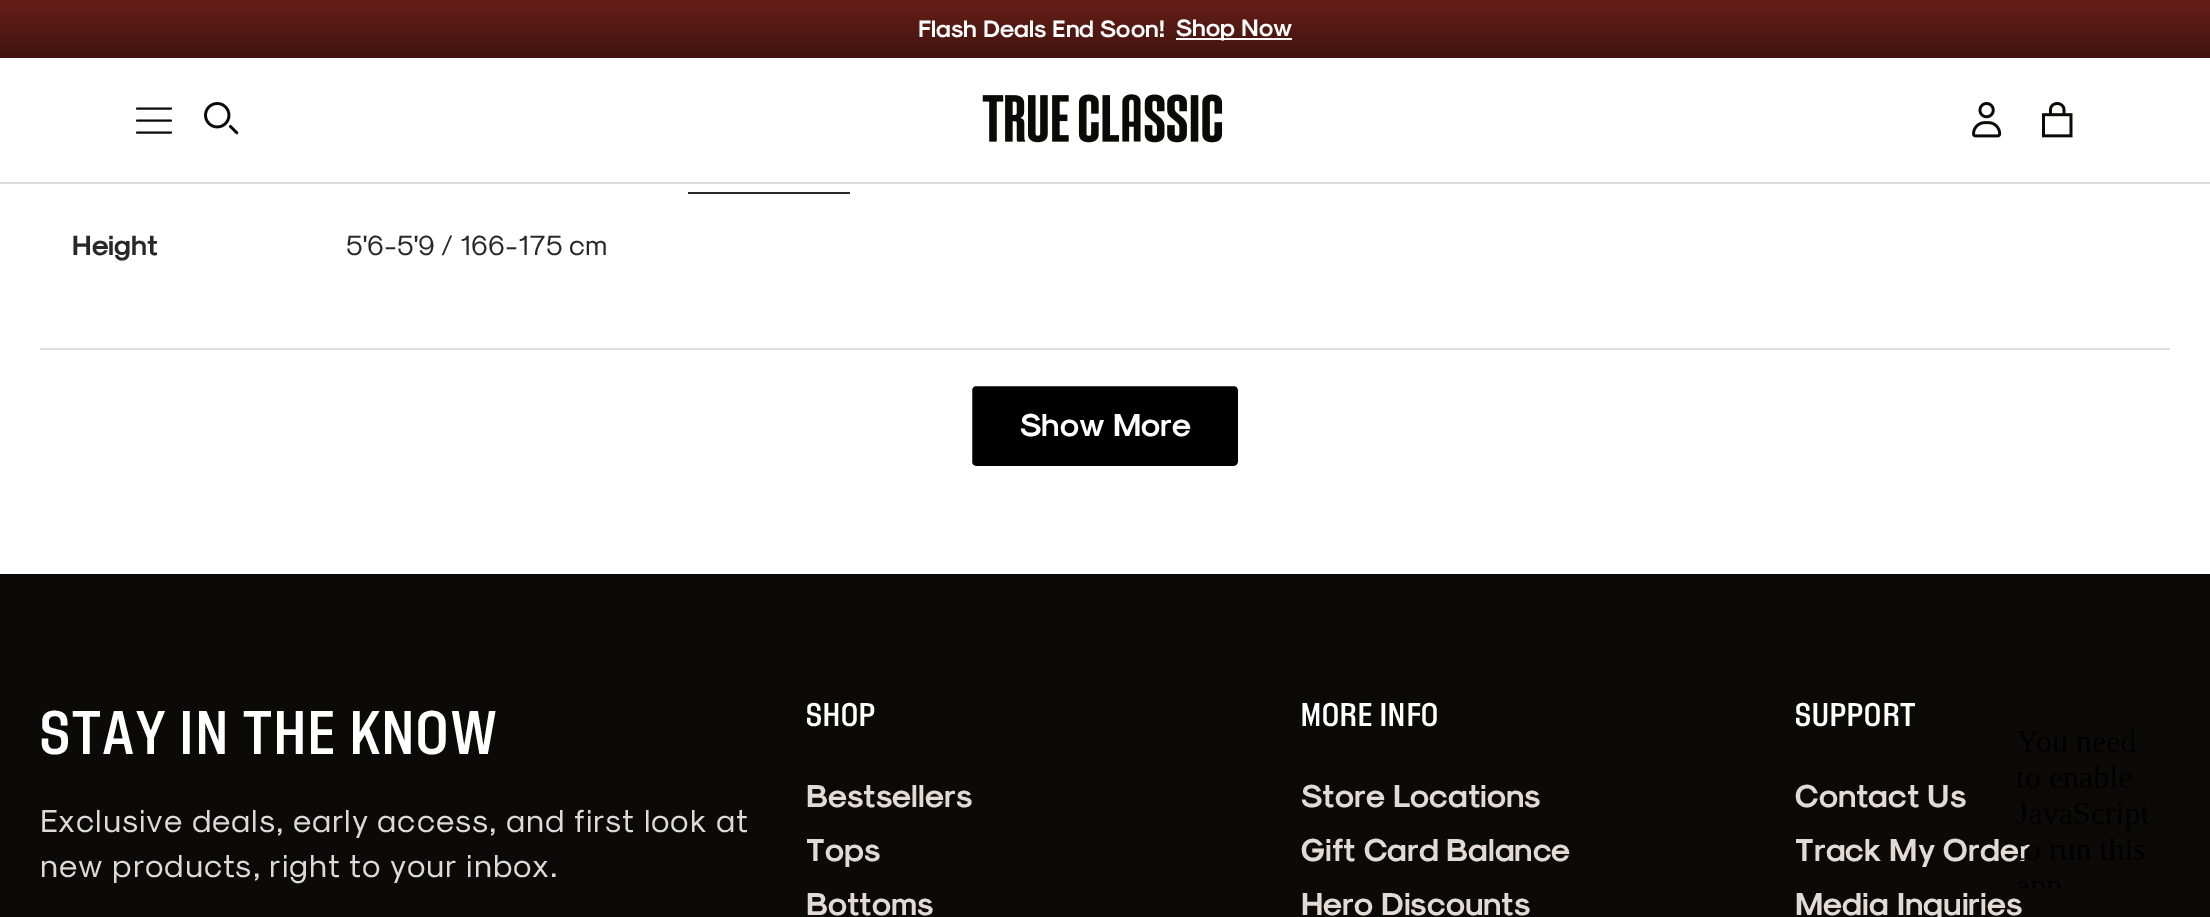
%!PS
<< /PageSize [2210 917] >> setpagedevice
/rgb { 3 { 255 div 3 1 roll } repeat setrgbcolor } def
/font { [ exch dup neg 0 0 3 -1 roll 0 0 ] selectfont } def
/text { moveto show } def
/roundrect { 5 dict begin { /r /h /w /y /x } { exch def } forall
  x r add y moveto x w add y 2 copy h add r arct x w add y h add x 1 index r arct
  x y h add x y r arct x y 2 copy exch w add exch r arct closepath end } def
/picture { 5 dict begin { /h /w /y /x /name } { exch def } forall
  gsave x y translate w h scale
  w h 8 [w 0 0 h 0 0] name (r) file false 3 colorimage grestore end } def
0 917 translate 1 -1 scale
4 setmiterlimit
255 255 255 rgb
0 0 2210 917 rectfill
gsave 0 0 moveto 2210 0 rlineto 0 58 rlineto -2210 0 rlineto closepath clip newpath
<< /ShadingType 2 /ColorSpace /DeviceRGB /Coords [1105 0 1105 58] /Extend [true true] /Function << /FunctionType 2 /Domain [0 1] /C0 [0.396 0.122 0.09] /C1 [0.255 0.078 0.059] /N 1 >> >> shfill grestore
1176 38 116 2 rectfill
219 219 219 rgb
0 182 2210 2 rectfill
12 10 9 rgb
1.9 setlinewidth
1 setlinecap
137 132.5 moveto 34 0 rlineto 137 120.5 moveto 34 0 rlineto 137 108.5 moveto 34 0 rlineto stroke
(img_01.rgb) 204 102 35 33 picture
(img_02.rgb) 982 94 241 49 picture
(img_03.rgb) 1972 102 30 36 picture
(img_04.rgb) 2042 102 31 36 picture
221 221 221 rgb
40 348 2130 2 rectfill
40 40 40 rgb
688 192 162 2 rectfill
0 0 0 rgb
970 384 270 84 6 roundrect gsave fill grestore
255 255 255 rgb
4 setlinewidth
0 setlinecap
stroke
12 10 9 rgb
0 574 2210 343 rectfill
/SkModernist-Bold 24 font
255 255 255 rgb
(Flash Deals End Soon!) 918 37 text
(Shop Now) 1176 36 text
/SkModernist-Bold 28 font
40 40 40 rgb
(Height) 72 255 text
/SkModernist-Regular 28 font
(5'6-5'9 / 166-175 cm) 346 255 text
/SkModernist-Bold 32 font
255 255 255 rgb
(Show More) 1020 436 text
/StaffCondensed-Medium 60 font
40 754 moveto 2.4 0 (STAY IN THE KNOW) ashow
/SkModernist-Regular 32 font
219 219 219 rgb
40 832 moveto 0.95 0 (Exclusive deals, early access, and first look at) ashow
40 877 moveto 0.95 0 (new products, right to your inbox.) ashow
/StaffCondensed-Medium 32 font
255 255 255 rgb
806 726 moveto 1.25 0 (SHOP) ashow
/SkModernist-Bold 32 font
226 218 213 rgb
(Bestsellers) 806 807 text
(Tops) 806 861 text
(Bottoms) 806 915 text
/StaffCondensed-Medium 32 font
255 255 255 rgb
1301 726 moveto 1.25 0 (MORE INFO) ashow
/SkModernist-Bold 32 font
226 218 213 rgb
(Store Locations) 1301 807 text
(Gift Card Balance) 1301 861 text
(Hero Discounts) 1301 915 text
/StaffCondensed-Medium 32 font
255 255 255 rgb
1795 726 moveto 1.25 0 (SUPPORT) ashow
/SkModernist-Bold 32 font
226 218 213 rgb
(Contact Us) 1795 807 text
(Track My Order) 1795 861 text
(Media Inquiries) 1795 915 text
(img_05.rgb) 2016 729 133 159 picture
showpage
